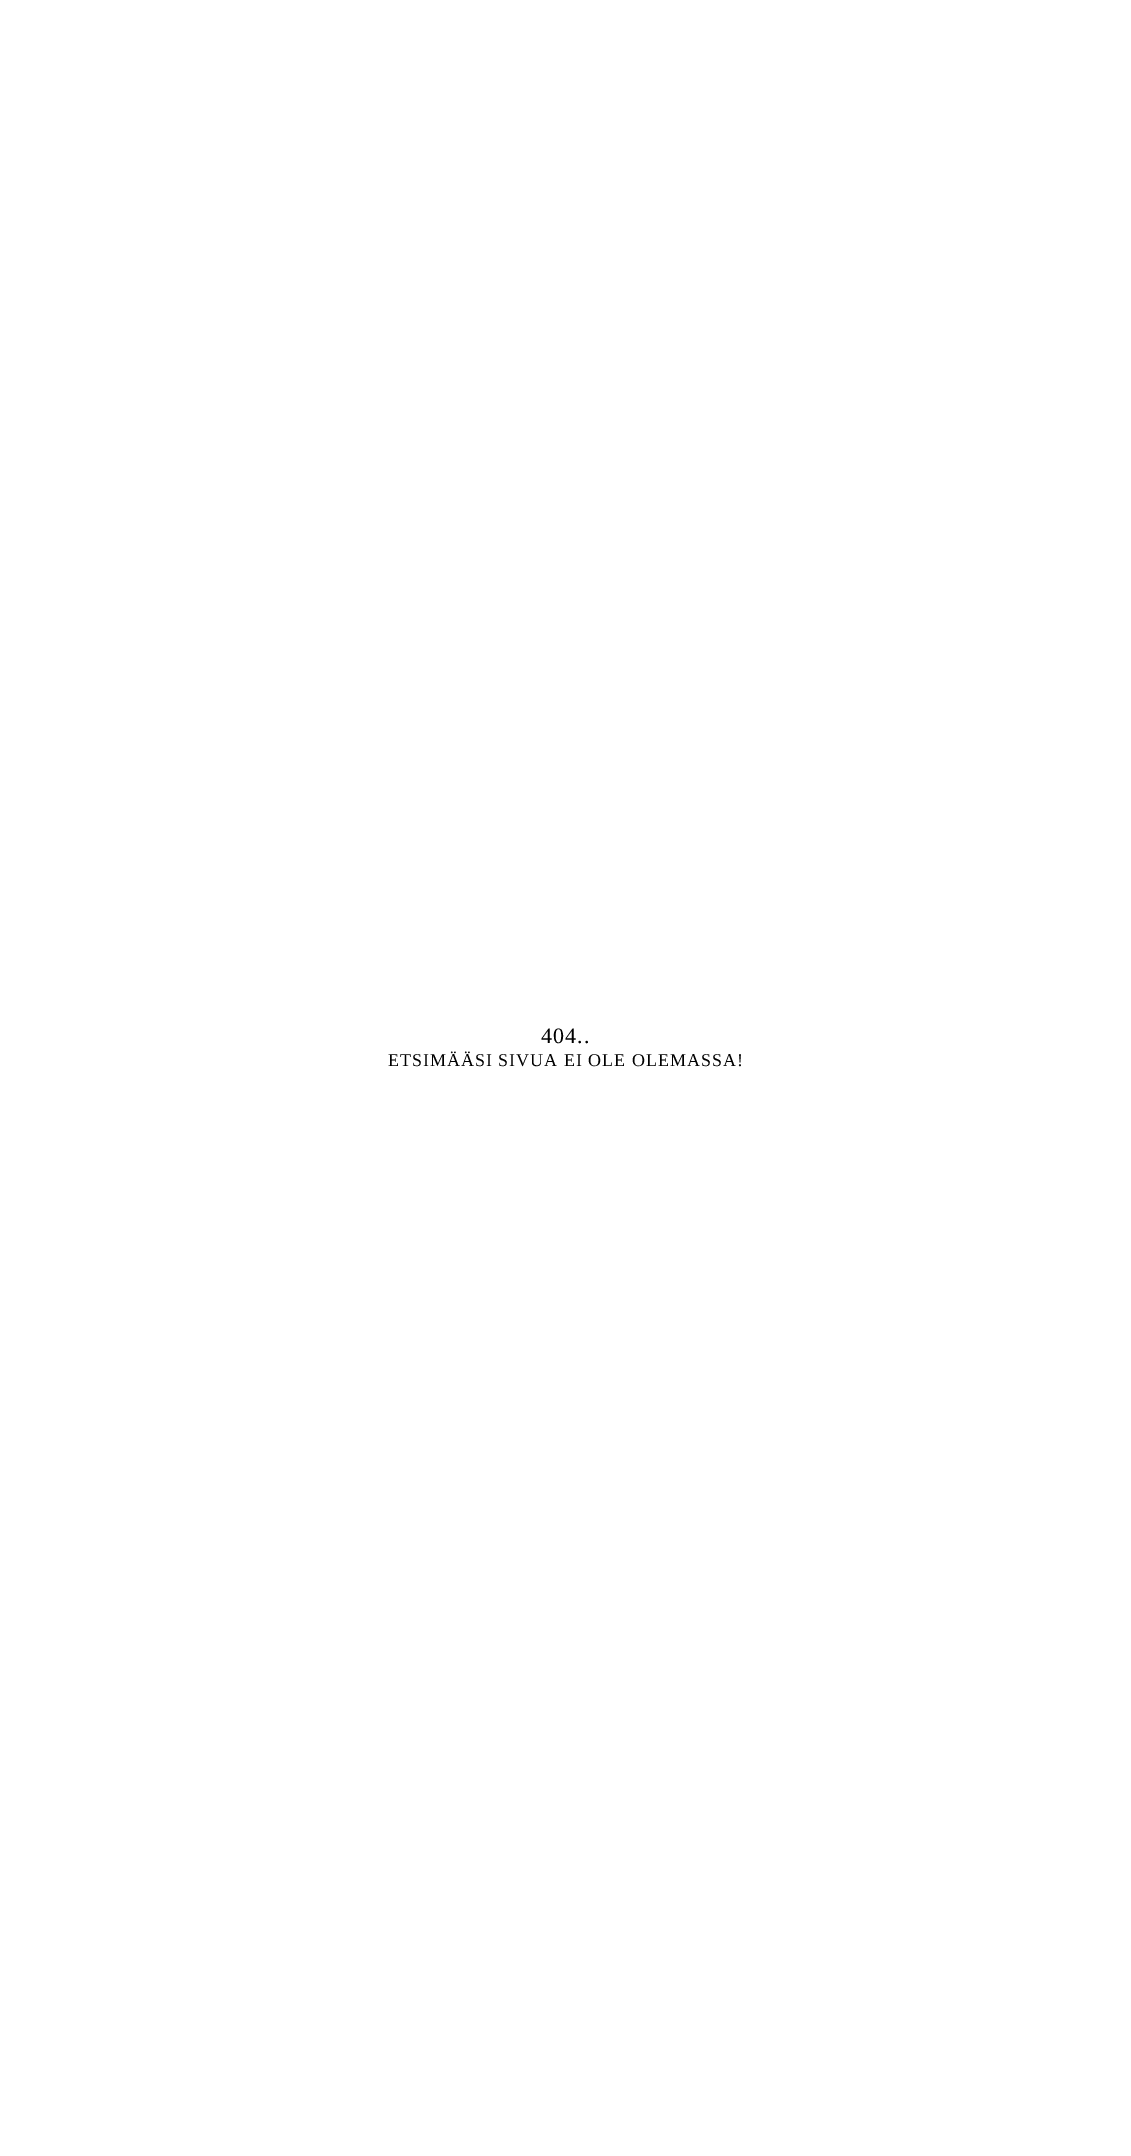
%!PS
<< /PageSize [1131 2156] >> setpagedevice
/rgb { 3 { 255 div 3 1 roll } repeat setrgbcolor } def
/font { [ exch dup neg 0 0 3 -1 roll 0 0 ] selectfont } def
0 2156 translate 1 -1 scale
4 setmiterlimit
255 255 255 rgb
0 0 1131 2156 rectfill
/LiberationSerif-Regular 22 font
0 0 0 rgb
541 1043 moveto 1 0 (404..) ashow
/LiberationSerif-Regular 18 font
388 1066 moveto 1 0 (ETSIMÄÄSI SIVUA EI OLE OLEMASSA!) ashow
showpage
